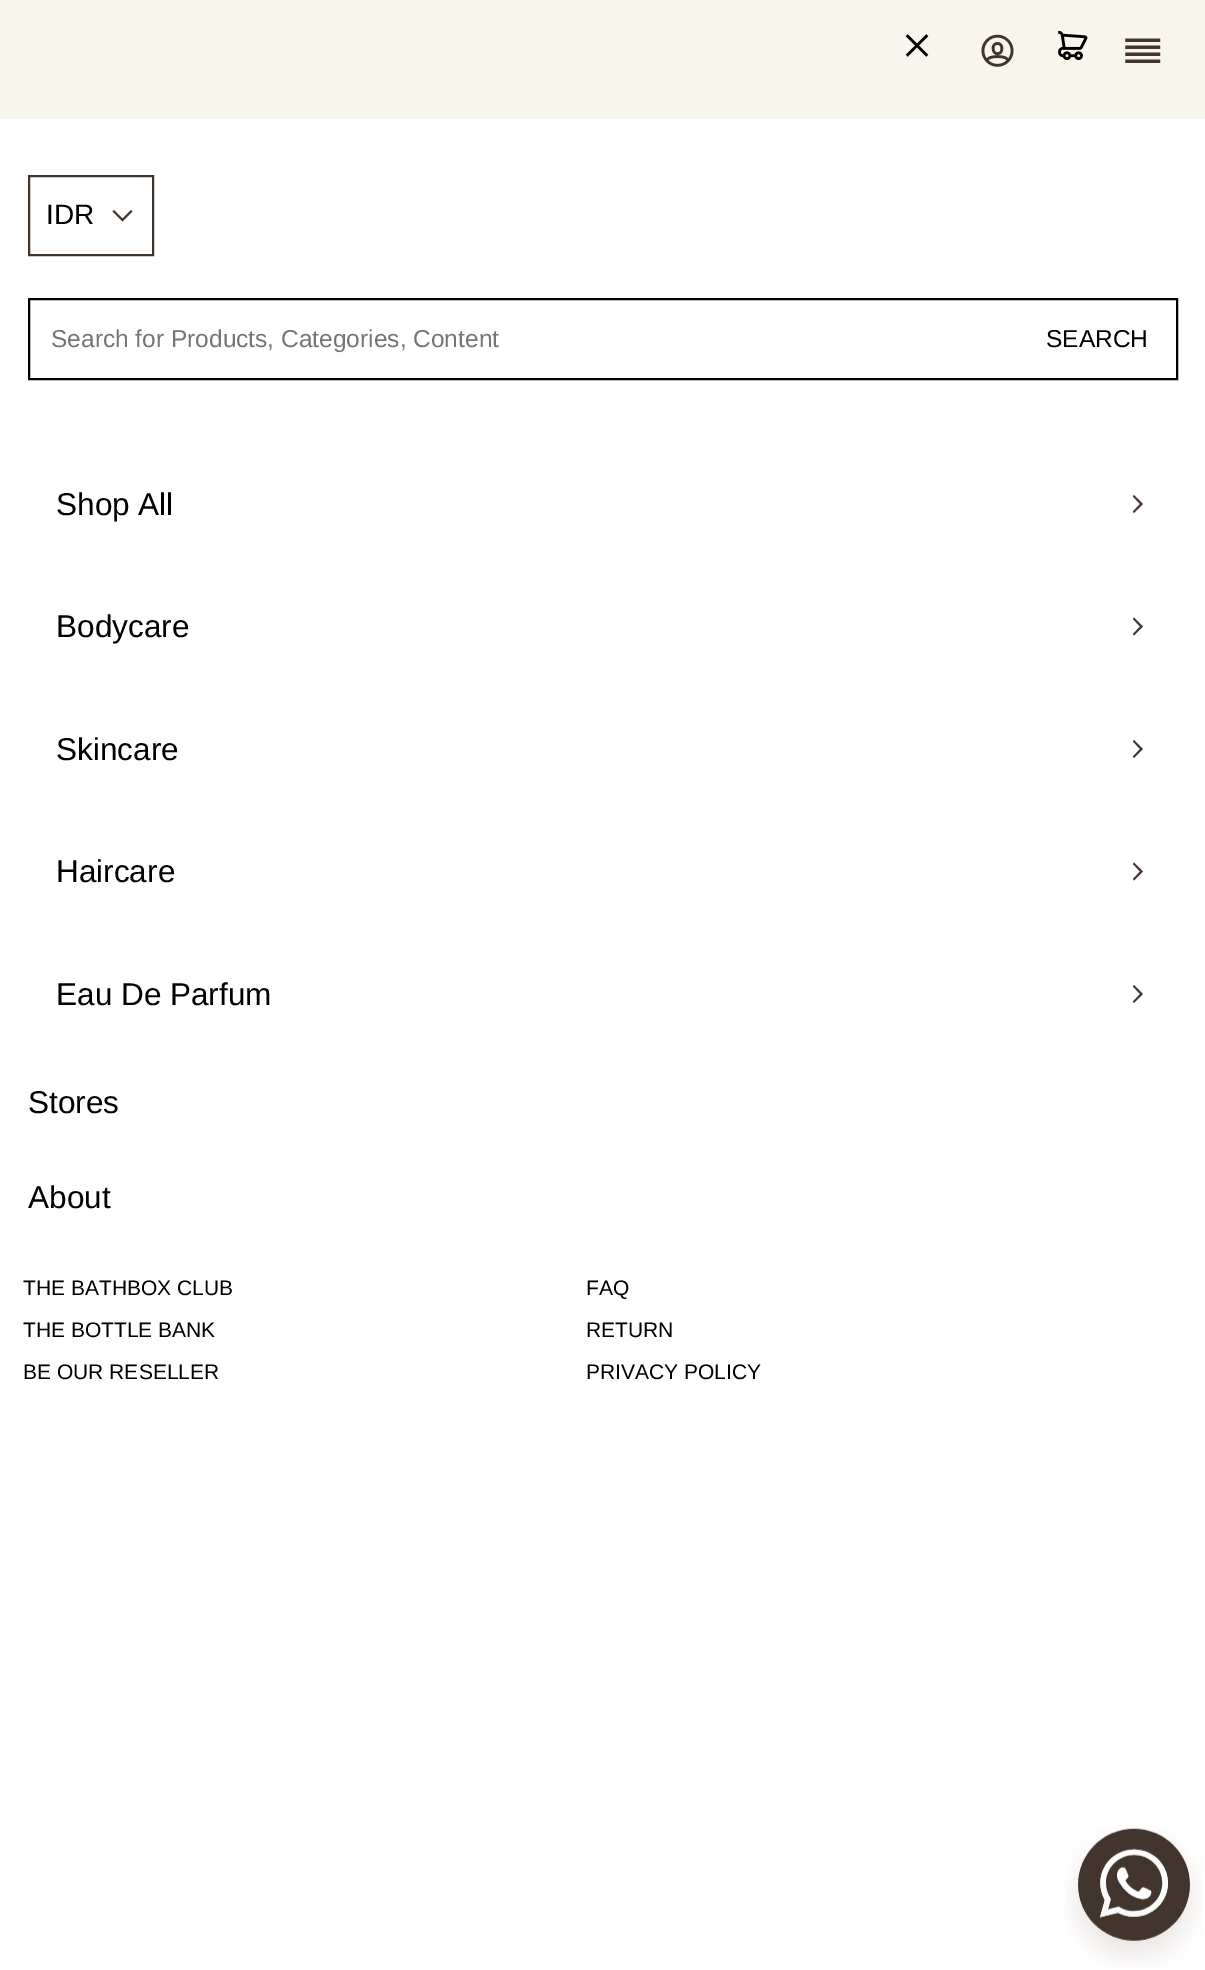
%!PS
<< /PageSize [1205 1970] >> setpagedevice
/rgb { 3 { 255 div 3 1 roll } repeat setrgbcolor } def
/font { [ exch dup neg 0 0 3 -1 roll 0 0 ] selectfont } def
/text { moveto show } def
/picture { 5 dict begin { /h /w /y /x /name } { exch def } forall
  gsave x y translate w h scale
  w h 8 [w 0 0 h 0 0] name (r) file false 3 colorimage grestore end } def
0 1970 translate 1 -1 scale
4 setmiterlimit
248 246 236 rgb
0 0 1205 1970 rectfill
(img_01.rgb) 905 34 24 23 picture
(img_02.rgb) 981 34 33 33 picture
(img_03.rgb) 1058 30 30 31 picture
(img_04.rgb) 1125 38 36 25 picture
255 255 255 rgb
0 119 1205 1851 rectfill
66 53 46 rgb
2 setlinewidth
29 176 124 79 rectstroke
131 210 moveto 1.5 1.5 rlineto -10 10 rlineto -10 -10 rlineto 1.5 -1.5 rlineto 8.5 8.5 rlineto closepath eofill
0 0 0 rgb
29 299 1148 80 rectstroke
66 53 46 rgb
1134 495 moveto 9 9 rlineto -9 9 rlineto -1 -1.5 rlineto 7 -7.5 rlineto -7 -7.5 rlineto closepath fill
1134 617.5 moveto 9 9 rlineto -9 9 rlineto -1 -1.5 rlineto 7 -7.5 rlineto -7 -7.5 rlineto closepath fill
1134 740 moveto 9 9 rlineto -9 9 rlineto -1 -1.5 rlineto 7 -7.5 rlineto -7 -7.5 rlineto closepath fill
1134 862.5 moveto 9 9 rlineto -9 9 rlineto -1 -1.5 rlineto 7 -7.5 rlineto -7 -7.5 rlineto closepath fill
1134 985 moveto 9 9 rlineto -9 9 rlineto -1 -1.5 rlineto 7 -7.5 rlineto -7 -7.5 rlineto closepath fill
(img_05.rgb) 1065 1828 138 139 picture
/LiberationSans-Regular 28 font
0 0 0 rgb
(IDR) 46 224 text
/LiberationSans-Regular 24.5 font
117 117 117 rgb
(Search for Products, Categories, Content) 51 347 text
0 0 0 rgb
(SEARCH) 1046 347 text
/LiberationSans-Regular 31.5 font
(Shop All) 56 515 text
(Bodycare) 56 637 text
(Skincare) 56 760 text
(Haircare) 56 882 text
(Eau De Parfum) 56 1005 text
(Stores) 28 1113 text
(About) 28 1208 text
/LiberationSans-Regular 21 font
(THE BATHBOX CLUB) 23 1295 text
(THE BOTTLE BANK) 23 1337 text
(BE OUR RESELLER) 23 1379 text
(FAQ) 586 1295 text
(RETURN) 586 1337 text
(PRIVACY POLICY) 586 1379 text
showpage
